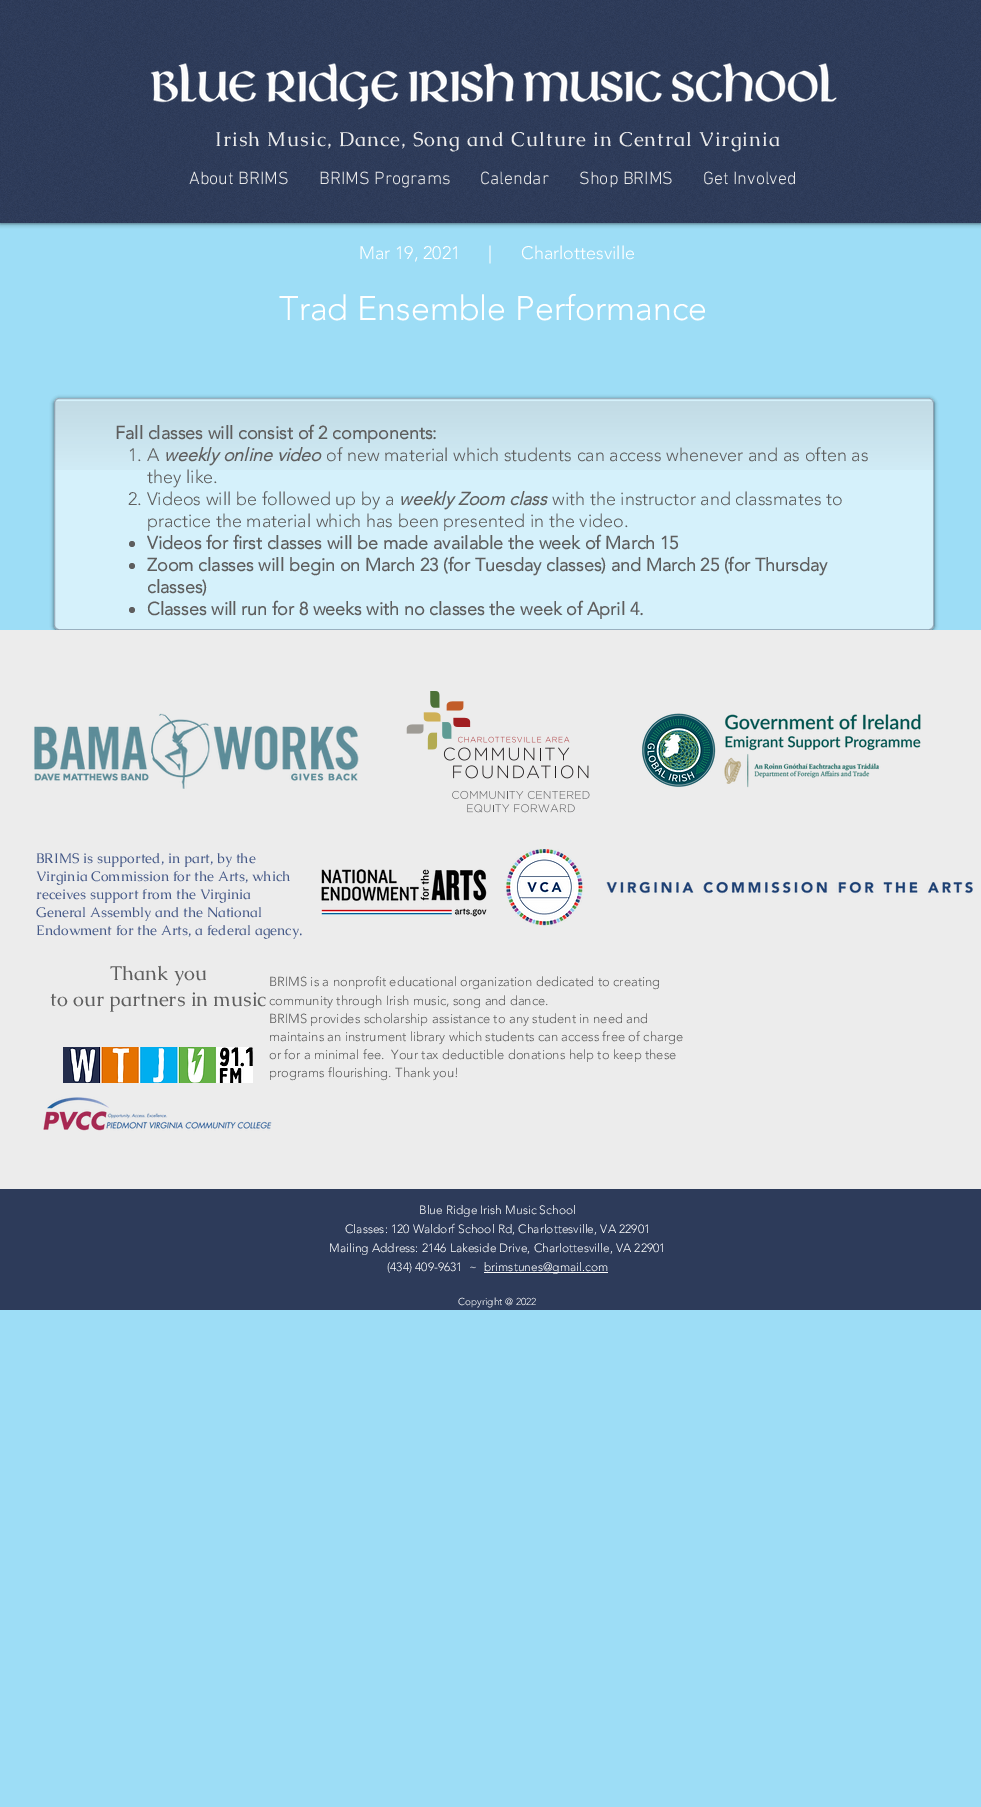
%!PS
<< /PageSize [981 1807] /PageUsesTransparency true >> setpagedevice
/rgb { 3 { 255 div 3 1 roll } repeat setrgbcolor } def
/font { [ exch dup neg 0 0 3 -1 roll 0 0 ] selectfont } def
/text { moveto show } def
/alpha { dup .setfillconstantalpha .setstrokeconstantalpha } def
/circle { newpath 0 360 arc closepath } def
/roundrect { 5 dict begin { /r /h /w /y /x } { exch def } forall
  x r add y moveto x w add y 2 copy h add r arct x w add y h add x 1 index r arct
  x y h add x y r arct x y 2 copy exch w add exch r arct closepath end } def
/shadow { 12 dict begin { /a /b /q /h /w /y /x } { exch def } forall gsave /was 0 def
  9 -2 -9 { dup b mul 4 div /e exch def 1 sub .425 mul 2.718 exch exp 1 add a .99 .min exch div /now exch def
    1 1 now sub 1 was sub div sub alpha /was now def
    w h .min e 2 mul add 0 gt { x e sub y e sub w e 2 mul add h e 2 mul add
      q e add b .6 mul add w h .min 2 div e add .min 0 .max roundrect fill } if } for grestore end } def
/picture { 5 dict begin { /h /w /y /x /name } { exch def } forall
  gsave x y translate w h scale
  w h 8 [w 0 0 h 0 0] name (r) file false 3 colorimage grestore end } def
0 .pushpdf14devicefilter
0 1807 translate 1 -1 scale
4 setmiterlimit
157 221 246 rgb
0 0 981 1807 rectfill
0 0 0 rgb
0 0 981 223 0 2.5 0.7 shadow
45 59 90 rgb
0 0 981 223 rectfill
(img_01.rgb) 0 0 981 223 picture
(img_02.rgb) 150 61 687 49 picture
gsave
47 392 moveto 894 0 rlineto 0 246 rlineto -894 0 rlineto closepath 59 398 moveto 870 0 rlineto 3 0 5 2 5 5 rcurveto 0 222 rlineto 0 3 -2 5 -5 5 rcurveto -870 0 rlineto -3 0 -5 -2 -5 -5 rcurveto 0 -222 rlineto 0 -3 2 -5 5 -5 rcurveto closepath eoclip newpath
0 0 0 rgb
54 399 880 232 5 2 0.6 shadow
grestore
0.76 alpha
231 247 253 rgb
54 398 880 232 5 roundrect fill
1 alpha
(img_03.rgb) 54 401 880 69 picture
0.37 alpha
50 65 88 rgb
54.5 398.5 879 231 4.5 roundrect stroke
1 alpha
94 94 94 rgb
132 544 3 circle fill
132 566 3 circle fill
132 610 3 circle fill
236 236 236 rgb
0 630 981 559 rectfill
(img_04.rgb) 34 713 325 76 picture
(img_05.rgb) 406 691 184 122 picture
(img_06.rgb) 642 713 279 75 picture
(img_07.rgb) 321 869 166 48 picture
(img_08.rgb) 506 849 467 77 picture
(img_09.rgb) 63 1047 190 36 picture
(img_10.rgb) 43 1097 229 34 picture
45 59 90 rgb
0 1189 981 121 rectfill
255 255 255 rgb
484 1272 124 1 rectfill
/Caudex-Regular 20 font
236 236 236 rgb
215 146 moveto 1 0 (Irish Music, Dance, Song and Culture in Central Virginia) ashow
/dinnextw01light-Light 18 font
(About BRIMS) 189 184 text
(BRIMS Programs) 319 184 text
(Calendar) 480 184 text
(Shop BRIMS) 579 184 text
(Get Involved) 703 184 text
/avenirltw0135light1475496-Light 18 font
255 255 255 rgb
(Mar 19, 2021) 359 259 text
(|) 488 259 text
(Charlottesville) 521 259 text
/avenirltw0135light1475496-Light 34 font
(Trad Ensemble Performance) 279 320 text
/avenirltw0135light1475496-Bold 18 font
94 94 94 rgb
(Fall classes will consist of 2 components:) 115 439 text
/avenirltw0135light1475496-Light 18 font
(1. A) 128 461 text
/avenirltw0135light1475496-BoldItalic 18 font
(weekly online video) 164 461 text
/avenirltw0135light1475496-Light 18 font
(of new material which students can access whenever and as often as) 326 461 text
(they like.) 147 483 text
(2. Videos will be followed up by a) 128 505 text
/avenirltw0135light1475496-BoldItalic 18 font
(weekly Zoom class) 399 505 text
/avenirltw0135light1475496-Light 18 font
(with the instructor and classmates to) 552 505 text
(practice the material which has been presented in the video.) 147 527 text
/avenirltw0135light1475496-Bold 18 font
(Videos for first classes will be made available the week of March 15) 147 549 text
(Zoom classes will begin on March 23 \(for Tuesday classes\) and March 25 \(for Thursday) 147 571 text
(classes\)) 147 593 text
(Classes will run for 8 weeks with no classes the week of April 4.) 147 615 text
/Caudex-Regular 14 font
68 88 135 rgb
(BRIMS is supported, in part, by the) 36 863 text
(Virginia Commission for the Arts, which) 36 881 text
(receives support from the Virginia) 36 899 text
(General Assembly and the National) 36 917 text
(Endowment for the Arts, a federal agency.) 36 935 text
/Caudex-Regular 20 font
94 94 94 rgb
(Thank you) 110 980 text
(to our partners in music) 50 1006 text
/avenirltw0135light1475496-Light 13 font
(BRIMS is a nonprofit educational organization dedicated to creating) 269 986 text
(community through Irish music, song and dance.) 269 1005 text
(BRIMS provides scholarship assistance to any student in need and) 269 1023 text
(maintains an instrument library which students can access free of charge) 269 1041 text
(or for a minimal fee.  Your tax deductible donations help to keep these) 269 1059 text
(programs flourishing. Thank you!) 269 1077 text
/avenirltw0135light1475496-Light 12 font
255 255 255 rgb
(Blue Ridge Irish Music School) 419 1214 text
(Classes: 120 Waldorf School Rd, Charlottesville, VA 22901) 345 1233 text
(Mailing Address: 2146 Lakeside Drive, Charlottesville, VA 22901) 329 1252 text
(\(434\) 409-9631  ~) 387 1271 text
(brimstunes@gmail.com) 484 1271 text
/avenirltw0135light1475496-Light 10 font
(Copyright @ 2022) 458 1305 text
.poppdf14devicefilter showpage
